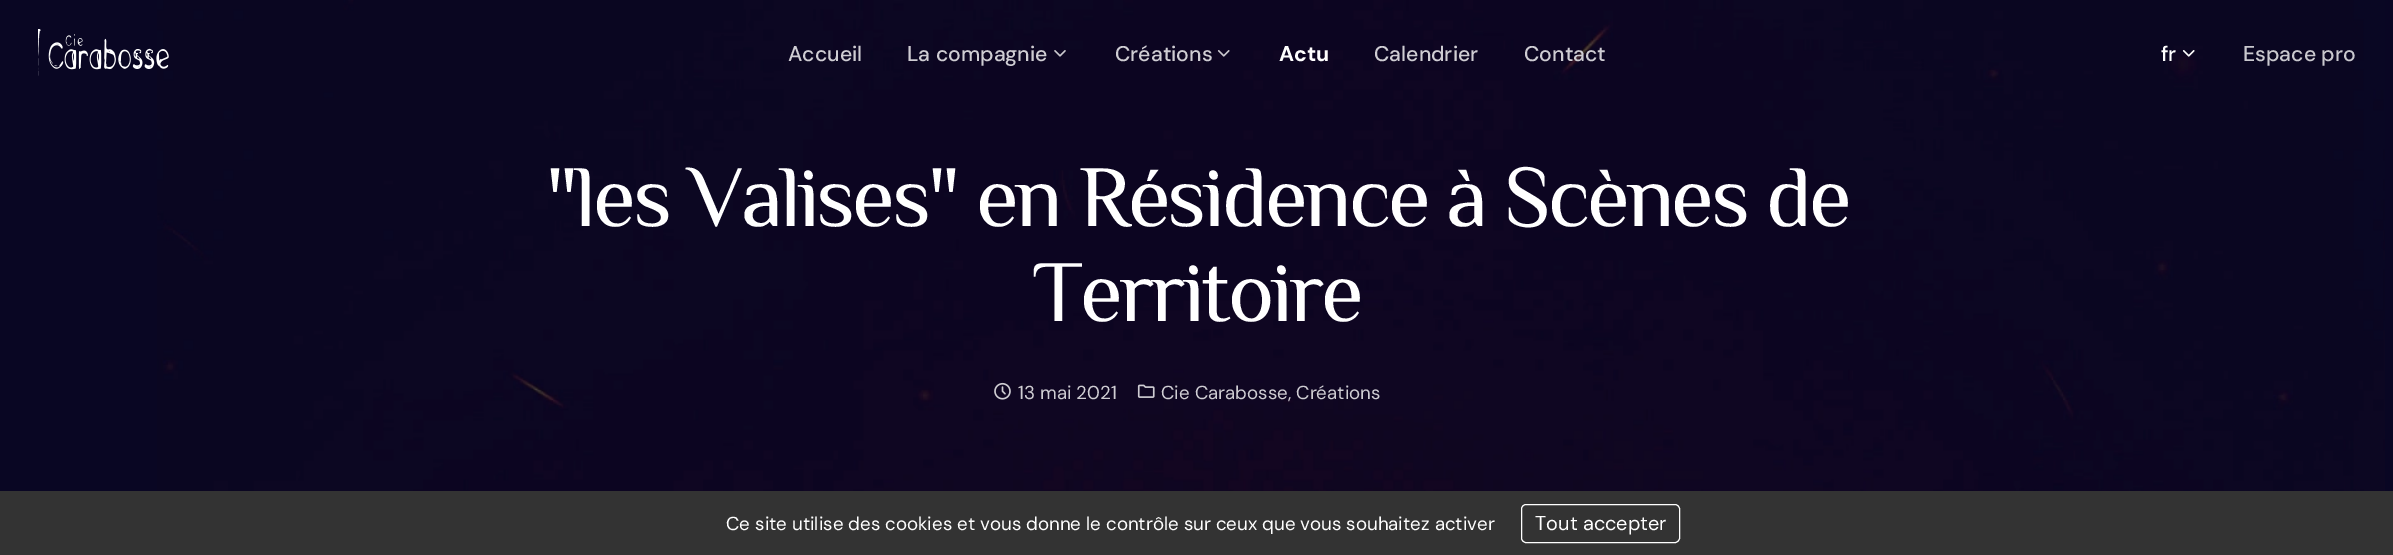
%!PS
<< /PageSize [2393 555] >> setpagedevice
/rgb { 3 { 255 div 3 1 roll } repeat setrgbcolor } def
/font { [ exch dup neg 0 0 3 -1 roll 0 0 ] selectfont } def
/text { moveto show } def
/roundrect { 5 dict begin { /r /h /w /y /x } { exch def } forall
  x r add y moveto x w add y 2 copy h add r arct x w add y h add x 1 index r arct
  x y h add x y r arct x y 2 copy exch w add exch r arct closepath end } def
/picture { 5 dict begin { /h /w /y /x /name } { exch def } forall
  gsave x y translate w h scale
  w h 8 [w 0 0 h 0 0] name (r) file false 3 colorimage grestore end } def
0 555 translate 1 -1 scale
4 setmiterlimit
9 6 35 rgb
0 0 2393 555 rectfill
(img_01.rgb) 157 0 2228 491 picture
(img_02.rgb) 38 29 131 47 picture
(img_03.rgb) 1054 50 12 7 picture
(img_04.rgb) 1217 50 13 7 picture
(img_05.rgb) 2182 50 13 7 picture
(img_06.rgb) 994 382 17 18 picture
(img_07.rgb) 1137 384 18 14 picture
51 51 51 rgb
0 491 2393 64 rectfill
255 255 255 rgb
1521.5 504.5 158 38 4.5 roundrect stroke
/DMSans-Medium 21.25 font
207 205 211 rgb
(Accueil) 788 61 text
(La compagnie) 907 61 text
(Créations) 1115 61 text
/DMSans-Bold 21.25 font
255 255 255 rgb
(Actu) 1279 61 text
/DMSans-Medium 21.25 font
207 205 211 rgb
(Calendrier) 1374 61 text
(Contact) 1524 61 text
255 255 255 rgb
(fr) 2161 61 text
201 200 206 rgb
(Espace pro) 2243 61 text
/Philosopher-Regular 87.5 font
255 255 255 rgb
546 226 moveto -3.05 0 ("les Valises" en Résidence à Scènes de) ashow
1032 321 moveto -3.05 0 (Territoire) ashow
/DMSans-Regular 18.75 font
207 205 211 rgb
(13 mai 2021) 1018 399 text
(Cie Carabosse, Créations) 1161 399 text
255 255 255 rgb
(Ce site utilise des cookies et vous donne le contrôle sur ceux que vous souhaitez activer) 726 530 text
/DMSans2-Regular 20 font
(Tout accepter) 1535 530 text
showpage
